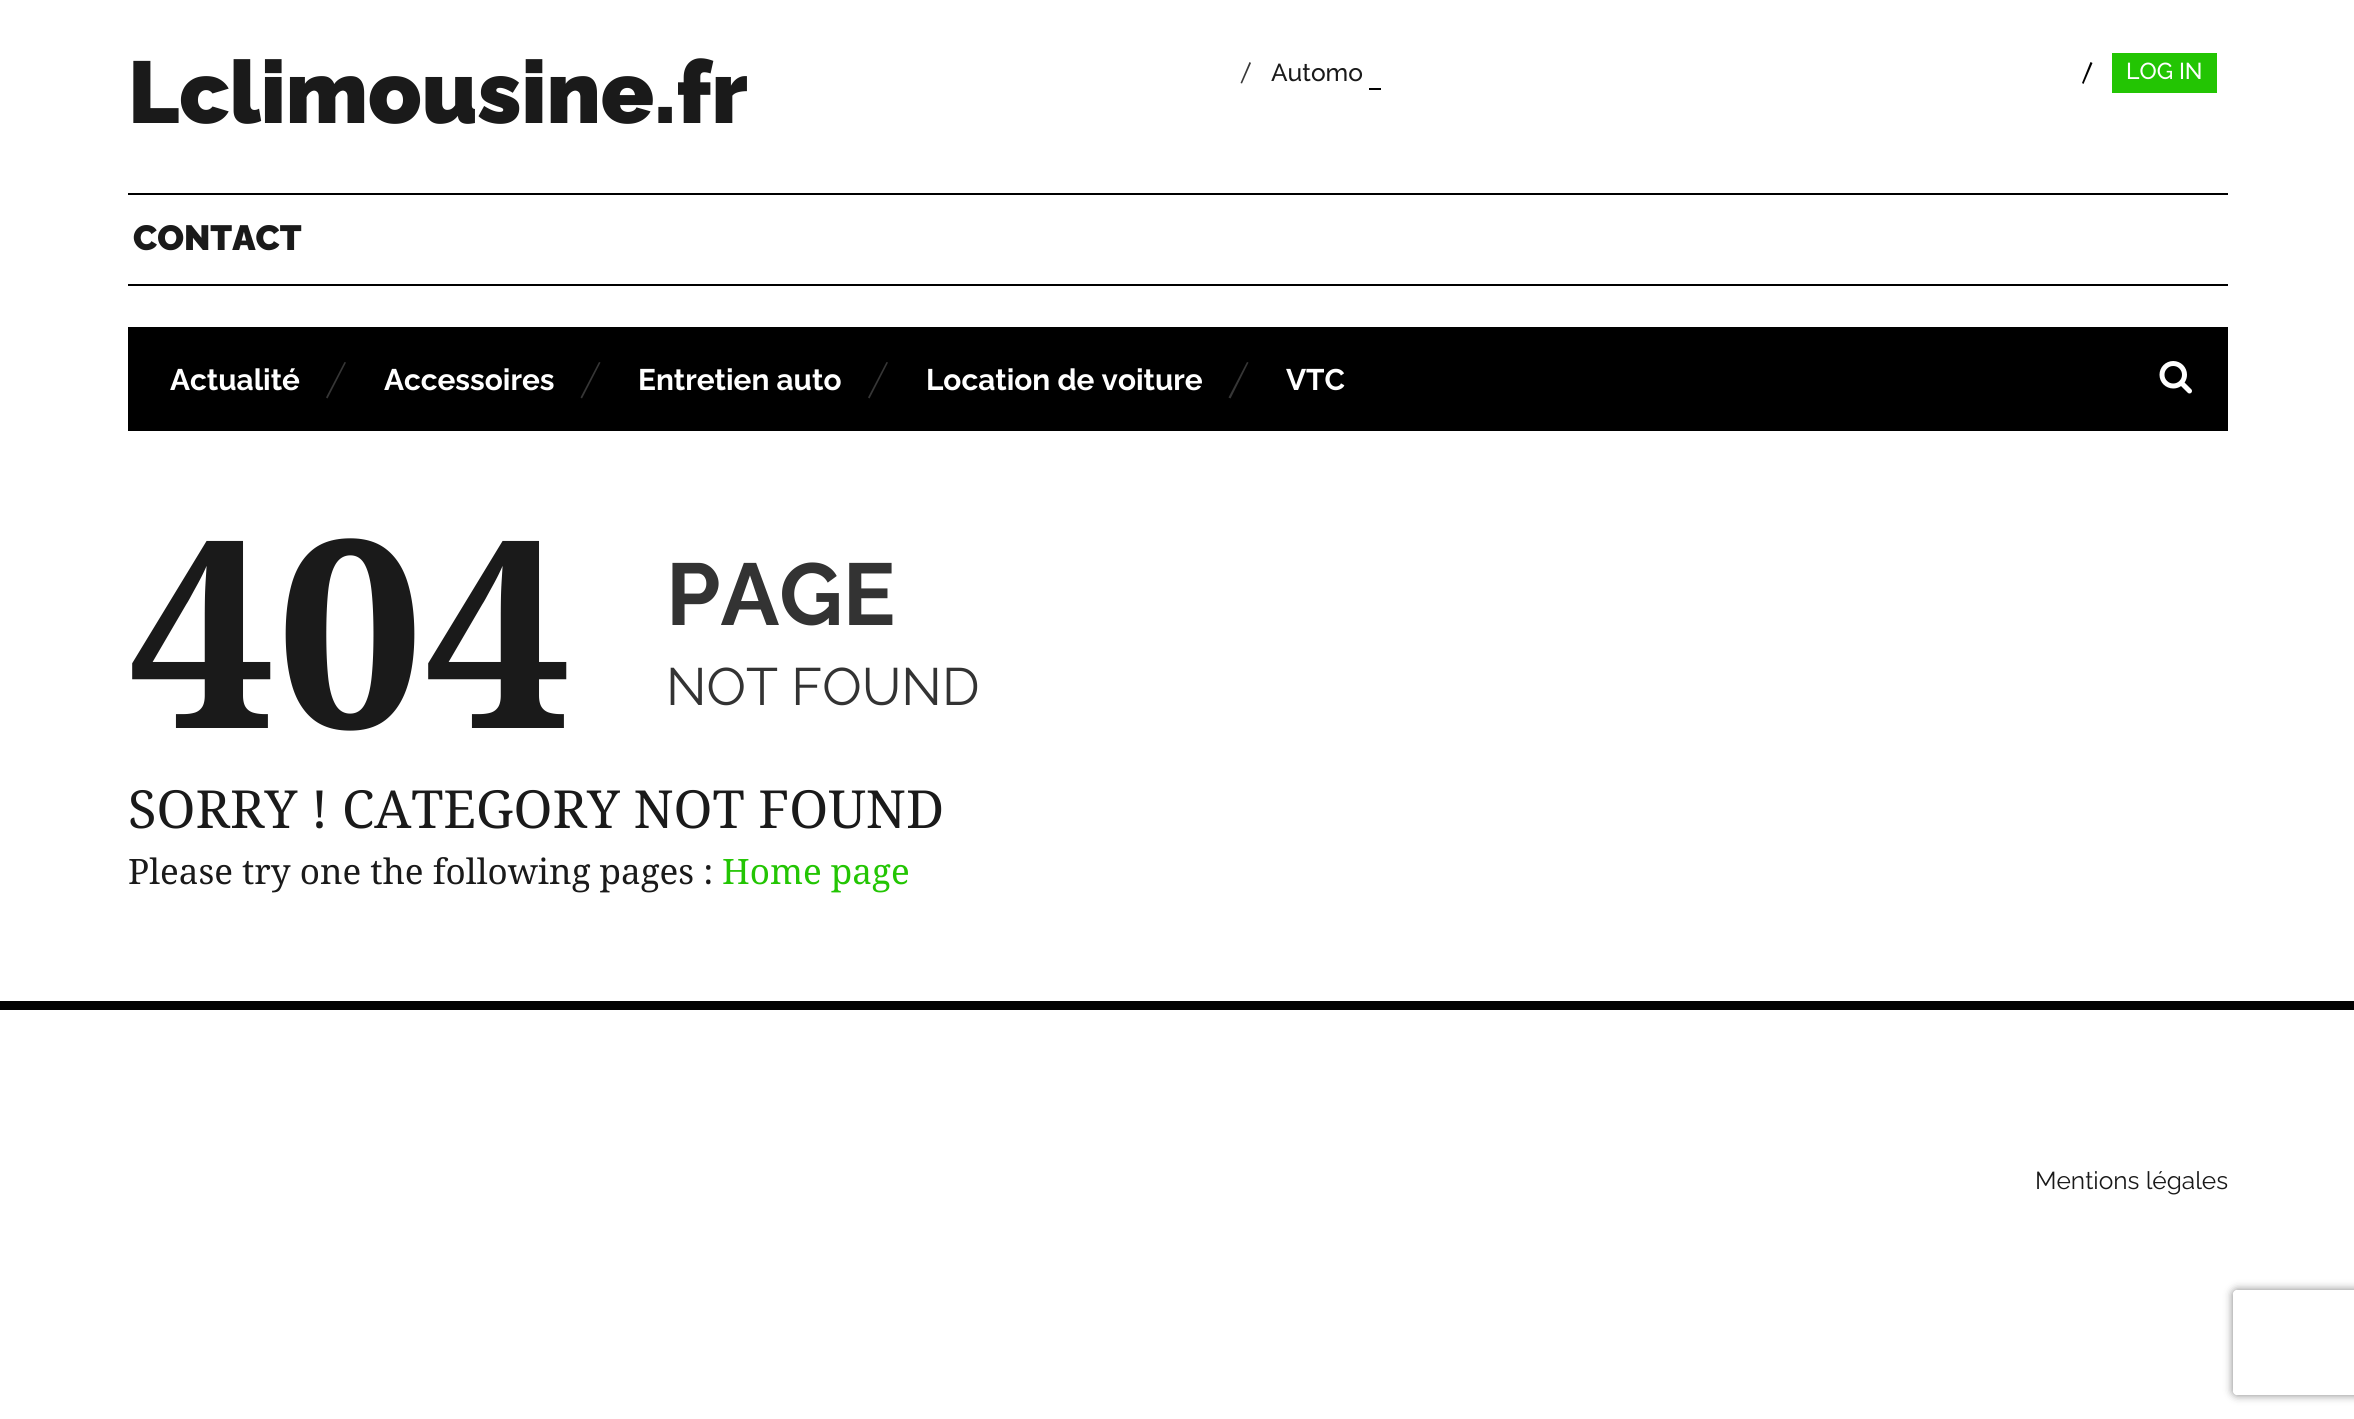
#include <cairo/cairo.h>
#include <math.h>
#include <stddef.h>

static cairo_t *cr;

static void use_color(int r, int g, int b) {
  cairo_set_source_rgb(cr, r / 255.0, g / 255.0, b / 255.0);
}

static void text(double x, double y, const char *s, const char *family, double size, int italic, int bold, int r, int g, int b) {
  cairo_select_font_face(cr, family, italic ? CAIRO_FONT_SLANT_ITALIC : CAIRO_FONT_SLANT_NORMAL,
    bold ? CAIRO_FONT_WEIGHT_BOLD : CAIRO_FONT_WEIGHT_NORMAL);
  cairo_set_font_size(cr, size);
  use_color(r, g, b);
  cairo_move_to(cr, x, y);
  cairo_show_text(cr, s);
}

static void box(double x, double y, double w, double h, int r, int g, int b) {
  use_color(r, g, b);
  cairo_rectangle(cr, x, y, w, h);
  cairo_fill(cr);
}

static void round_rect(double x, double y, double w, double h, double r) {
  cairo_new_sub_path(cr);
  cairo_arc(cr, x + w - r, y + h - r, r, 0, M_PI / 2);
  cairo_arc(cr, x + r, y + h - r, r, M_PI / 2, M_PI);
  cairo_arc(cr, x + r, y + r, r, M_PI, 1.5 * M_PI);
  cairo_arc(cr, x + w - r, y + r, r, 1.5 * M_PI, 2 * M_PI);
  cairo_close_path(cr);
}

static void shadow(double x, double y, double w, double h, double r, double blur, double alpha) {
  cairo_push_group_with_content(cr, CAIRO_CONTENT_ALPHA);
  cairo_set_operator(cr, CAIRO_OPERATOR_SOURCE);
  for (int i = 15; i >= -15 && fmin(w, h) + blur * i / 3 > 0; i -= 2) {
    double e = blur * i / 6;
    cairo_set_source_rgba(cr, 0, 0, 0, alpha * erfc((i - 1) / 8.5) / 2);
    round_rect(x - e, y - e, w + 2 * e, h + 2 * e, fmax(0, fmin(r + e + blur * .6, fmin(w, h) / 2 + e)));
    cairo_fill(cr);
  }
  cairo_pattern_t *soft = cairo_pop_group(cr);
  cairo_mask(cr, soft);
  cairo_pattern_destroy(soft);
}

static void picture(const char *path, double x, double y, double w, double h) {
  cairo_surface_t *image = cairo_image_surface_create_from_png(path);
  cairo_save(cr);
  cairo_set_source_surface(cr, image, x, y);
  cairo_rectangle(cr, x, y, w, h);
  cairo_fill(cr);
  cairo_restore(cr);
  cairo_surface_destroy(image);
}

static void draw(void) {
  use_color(255, 255, 255);
  cairo_paint(cr);
  use_color(56, 56, 56);
  cairo_new_path(cr);
  cairo_move_to(cr, 1249.5, 62);
  cairo_line_to(cr, 1251, 63);
  cairo_line_to(cr, 1242, 83.5);
  cairo_line_to(cr, 1240.5, 83);
  cairo_close_path(cr);
  cairo_fill(cr);
  use_color(0, 0, 0);
  cairo_new_path(cr);
  cairo_move_to(cr, 2090.5, 62);
  cairo_line_to(cr, 2092.5, 63);
  cairo_line_to(cr, 2083.5, 84);
  cairo_line_to(cr, 2082, 83);
  cairo_close_path(cr);
  cairo_fill(cr);
  box(1369, 88, 12, 2, 2, 2, 2);
  box(2112, 53, 105, 40, 35, 197, 3);
  box(128, 193, 2100, 2, 0, 0, 0);
  box(128, 284, 2100, 2, 0, 0, 0);
  box(128, 327, 2100, 104, 0, 0, 0);
  use_color(54, 54, 54);
  cairo_new_path(cr);
  cairo_move_to(cr, 344.5, 362);
  cairo_line_to(cr, 346, 362.5);
  cairo_line_to(cr, 327.5, 398.5);
  cairo_line_to(cr, 326, 397.5);
  cairo_close_path(cr);
  cairo_fill(cr);
  cairo_new_path(cr);
  cairo_move_to(cr, 599, 362);
  cairo_line_to(cr, 600.5, 362.5);
  cairo_line_to(cr, 582, 398.5);
  cairo_line_to(cr, 580.5, 397.5);
  cairo_close_path(cr);
  cairo_fill(cr);
  cairo_new_path(cr);
  cairo_move_to(cr, 886.5, 362);
  cairo_line_to(cr, 888, 362.5);
  cairo_line_to(cr, 869.5, 398.5);
  cairo_line_to(cr, 868, 397.5);
  cairo_close_path(cr);
  cairo_fill(cr);
  cairo_new_path(cr);
  cairo_move_to(cr, 1247, 362);
  cairo_line_to(cr, 1248.5, 362.5);
  cairo_line_to(cr, 1230.5, 398.5);
  cairo_line_to(cr, 1228.5, 397.5);
  cairo_close_path(cr);
  cairo_fill(cr);
  picture("img_01.png", 2159, 361, 33, 33);
  box(0, 1001, 2354, 9, 2, 2, 2);
  cairo_save(cr);
  cairo_set_fill_rule(cr, CAIRO_FILL_RULE_EVEN_ODD);
  cairo_new_path(cr);
  cairo_move_to(cr, 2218, 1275);
  cairo_line_to(cr, 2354, 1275);
  cairo_line_to(cr, 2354, 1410);
  cairo_line_to(cr, 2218, 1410);
  cairo_close_path(cr);
  cairo_move_to(cr, 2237, 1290);
  cairo_line_to(cr, 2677, 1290);
  cairo_curve_to(cr, 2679, 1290, 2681, 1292, 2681, 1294);
  cairo_line_to(cr, 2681, 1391);
  cairo_curve_to(cr, 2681, 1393, 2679, 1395, 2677, 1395);
  cairo_line_to(cr, 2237, 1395);
  cairo_curve_to(cr, 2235, 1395, 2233, 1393, 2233, 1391);
  cairo_line_to(cr, 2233, 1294);
  cairo_curve_to(cr, 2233, 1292, 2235, 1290, 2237, 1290);
  cairo_close_path(cr);
  cairo_clip(cr);
  use_color(128, 128, 128);
  shadow(2233, 1290, 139, 105, 4, 4.5, 1);
  cairo_restore(cr);
  text(128, 123, "Lclimousine.fr", "Raleway Black", 87.5, 0, 0, 26, 26, 26);
  text(1271, 81, "Automo", "Raleway Medium", 24.5, 0, 0, 26, 26, 26);
  text(2126, 79, "LOG IN", "Raleway Medium", 23, 0, 0, 255, 255, 255);
  text(133, 250, "CONTACT", "Raleway Black", 35, 0, 0, 26, 26, 26);
  text(170, 390, "Actualité", "Raleway", 29.75, 0, 1, 255, 255, 255);
  text(384, 390, "Accessoires", "Raleway", 29.75, 0, 1, 255, 255, 255);
  text(638, 390, "Entretien auto", "Raleway", 29.75, 0, 1, 255, 255, 255);
  text(926, 390, "Location de voiture", "Raleway", 29.75, 0, 1, 255, 255, 255);
  text(1286, 390, "VTC", "Raleway", 29.75, 0, 1, 255, 255, 255);
  text(128, 728, "404", "Noto Serif", 262, 0, 1, 26, 26, 26);
  text(666, 625, "PAGE", "Raleway", 87.5, 0, 1, 51, 51, 51);
  text(666, 705, "NOT FOUND", "Raleway", 52.5, 0, 0, 51, 51, 51);
  text(128, 828, "SORRY ! CATEGORY NOT FOUND", "Noto Serif", 52.5, 0, 0, 26, 26, 26);
  text(128, 884, "Please try one the following pages :", "Noto Serif", 35, 0, 0, 26, 26, 26);
  text(722, 884, "Home page", "Noto Serif", 35, 0, 0, 35, 197, 3);
  text(2035, 1189, "Mentions légales", "Raleway", 24.5, 0, 0, 26, 26, 26);
}

int main(void) {
  cairo_surface_t *surface = cairo_image_surface_create(CAIRO_FORMAT_RGB24, 2354, 1419);
  cr = cairo_create(surface);
  cairo_font_options_t *options = cairo_font_options_create();
  cairo_font_options_set_hint_metrics(options, CAIRO_HINT_METRICS_OFF);
  cairo_font_options_set_hint_style(options, CAIRO_HINT_STYLE_NONE);
  cairo_set_font_options(cr, options);
  cairo_set_miter_limit(cr, 4);
  draw();
  cairo_surface_write_to_png(surface, "out.png");
  cairo_font_options_destroy(options);
  cairo_destroy(cr);
  cairo_surface_destroy(surface);
  return 0;
}
